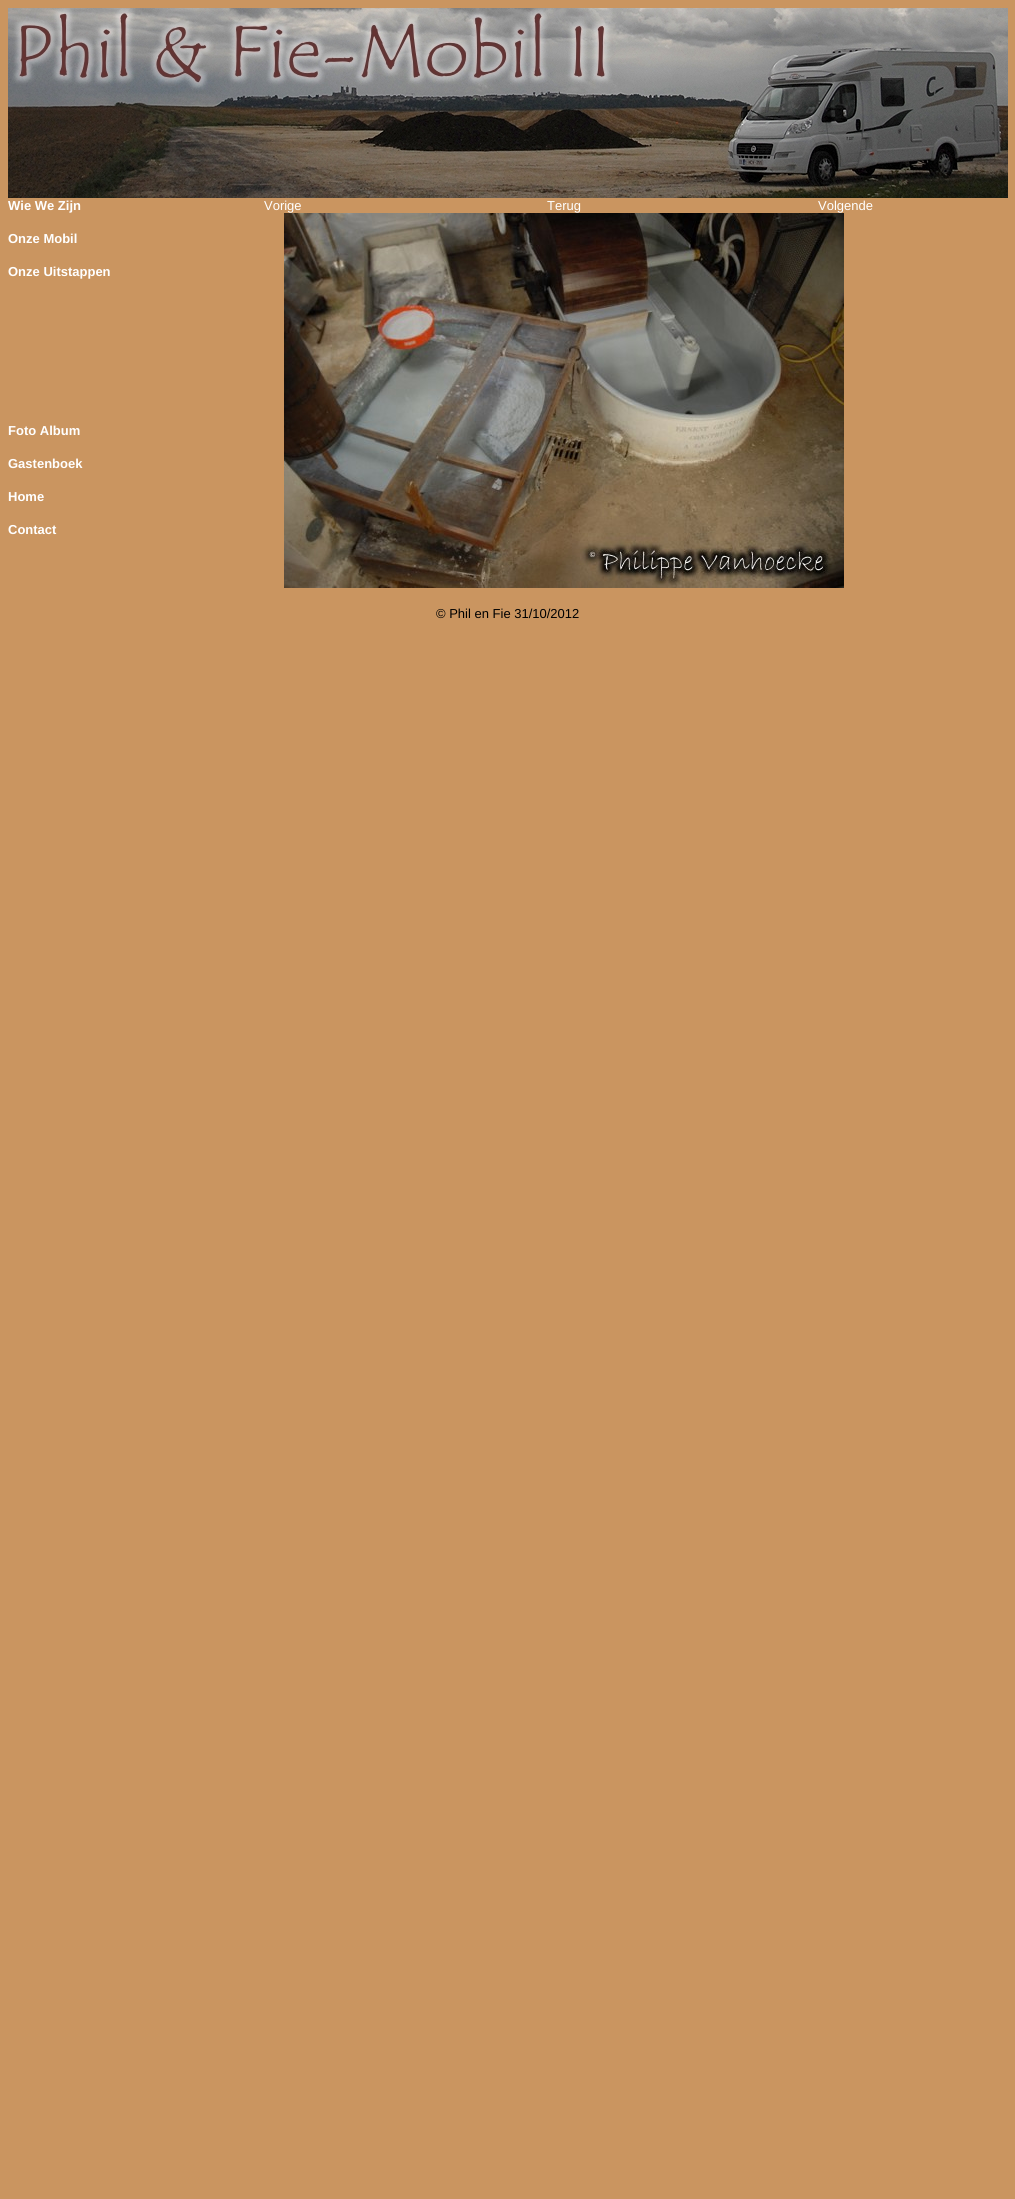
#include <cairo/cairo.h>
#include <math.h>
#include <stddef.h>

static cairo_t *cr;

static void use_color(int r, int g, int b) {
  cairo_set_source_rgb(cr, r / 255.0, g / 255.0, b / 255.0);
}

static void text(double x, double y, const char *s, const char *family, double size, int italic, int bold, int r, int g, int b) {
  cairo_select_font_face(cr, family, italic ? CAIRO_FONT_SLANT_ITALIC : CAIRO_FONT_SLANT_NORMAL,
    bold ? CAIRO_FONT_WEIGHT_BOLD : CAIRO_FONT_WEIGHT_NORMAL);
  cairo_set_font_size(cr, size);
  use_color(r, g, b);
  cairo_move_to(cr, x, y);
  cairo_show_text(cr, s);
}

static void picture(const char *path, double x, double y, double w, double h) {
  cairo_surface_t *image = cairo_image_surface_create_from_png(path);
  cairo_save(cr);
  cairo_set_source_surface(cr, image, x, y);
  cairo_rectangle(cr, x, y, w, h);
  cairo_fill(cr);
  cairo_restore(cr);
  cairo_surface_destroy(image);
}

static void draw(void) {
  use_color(202, 149, 96);
  cairo_paint(cr);
  picture("img_01.png", 8, 8, 1000, 190);
  picture("img_02.png", 284, 213, 560, 375);
  text(8, 210, "Wie We Zijn", "Liberation Sans", 13, 0, 1, 255, 255, 255);
  text(8, 243, "Onze Mobil", "Liberation Sans", 13, 0, 1, 255, 255, 255);
  text(8, 276, "Onze Uitstappen", "Liberation Sans", 13, 0, 1, 255, 255, 255);
  text(8, 435, "Foto Album", "Liberation Sans", 13, 0, 1, 255, 255, 255);
  text(8, 468, "Gastenboek", "Liberation Sans", 13, 0, 1, 255, 255, 255);
  text(8, 501, "Home", "Liberation Sans", 13, 0, 1, 255, 255, 255);
  text(8, 534, "Contact", "Liberation Sans", 13, 0, 1, 255, 255, 255);
  text(264, 210, "Vorige", "Liberation Sans", 13, 0, 0, 255, 255, 255);
  text(547, 210, "Terug", "Liberation Sans", 13, 0, 0, 255, 255, 255);
  text(818, 210, "Volgende", "Liberation Sans", 13, 0, 0, 255, 255, 255);
  text(436, 618, "© Phil en Fie 31/10/2012", "Liberation Sans", 13, 0, 0, 0, 0, 0);
}

int main(void) {
  cairo_surface_t *surface = cairo_image_surface_create(CAIRO_FORMAT_RGB24, 1015, 2199);
  cr = cairo_create(surface);
  cairo_font_options_t *options = cairo_font_options_create();
  cairo_font_options_set_hint_metrics(options, CAIRO_HINT_METRICS_OFF);
  cairo_font_options_set_hint_style(options, CAIRO_HINT_STYLE_NONE);
  cairo_set_font_options(cr, options);
  cairo_set_miter_limit(cr, 4);
  draw();
  cairo_surface_write_to_png(surface, "out.png");
  cairo_font_options_destroy(options);
  cairo_destroy(cr);
  cairo_surface_destroy(surface);
  return 0;
}
